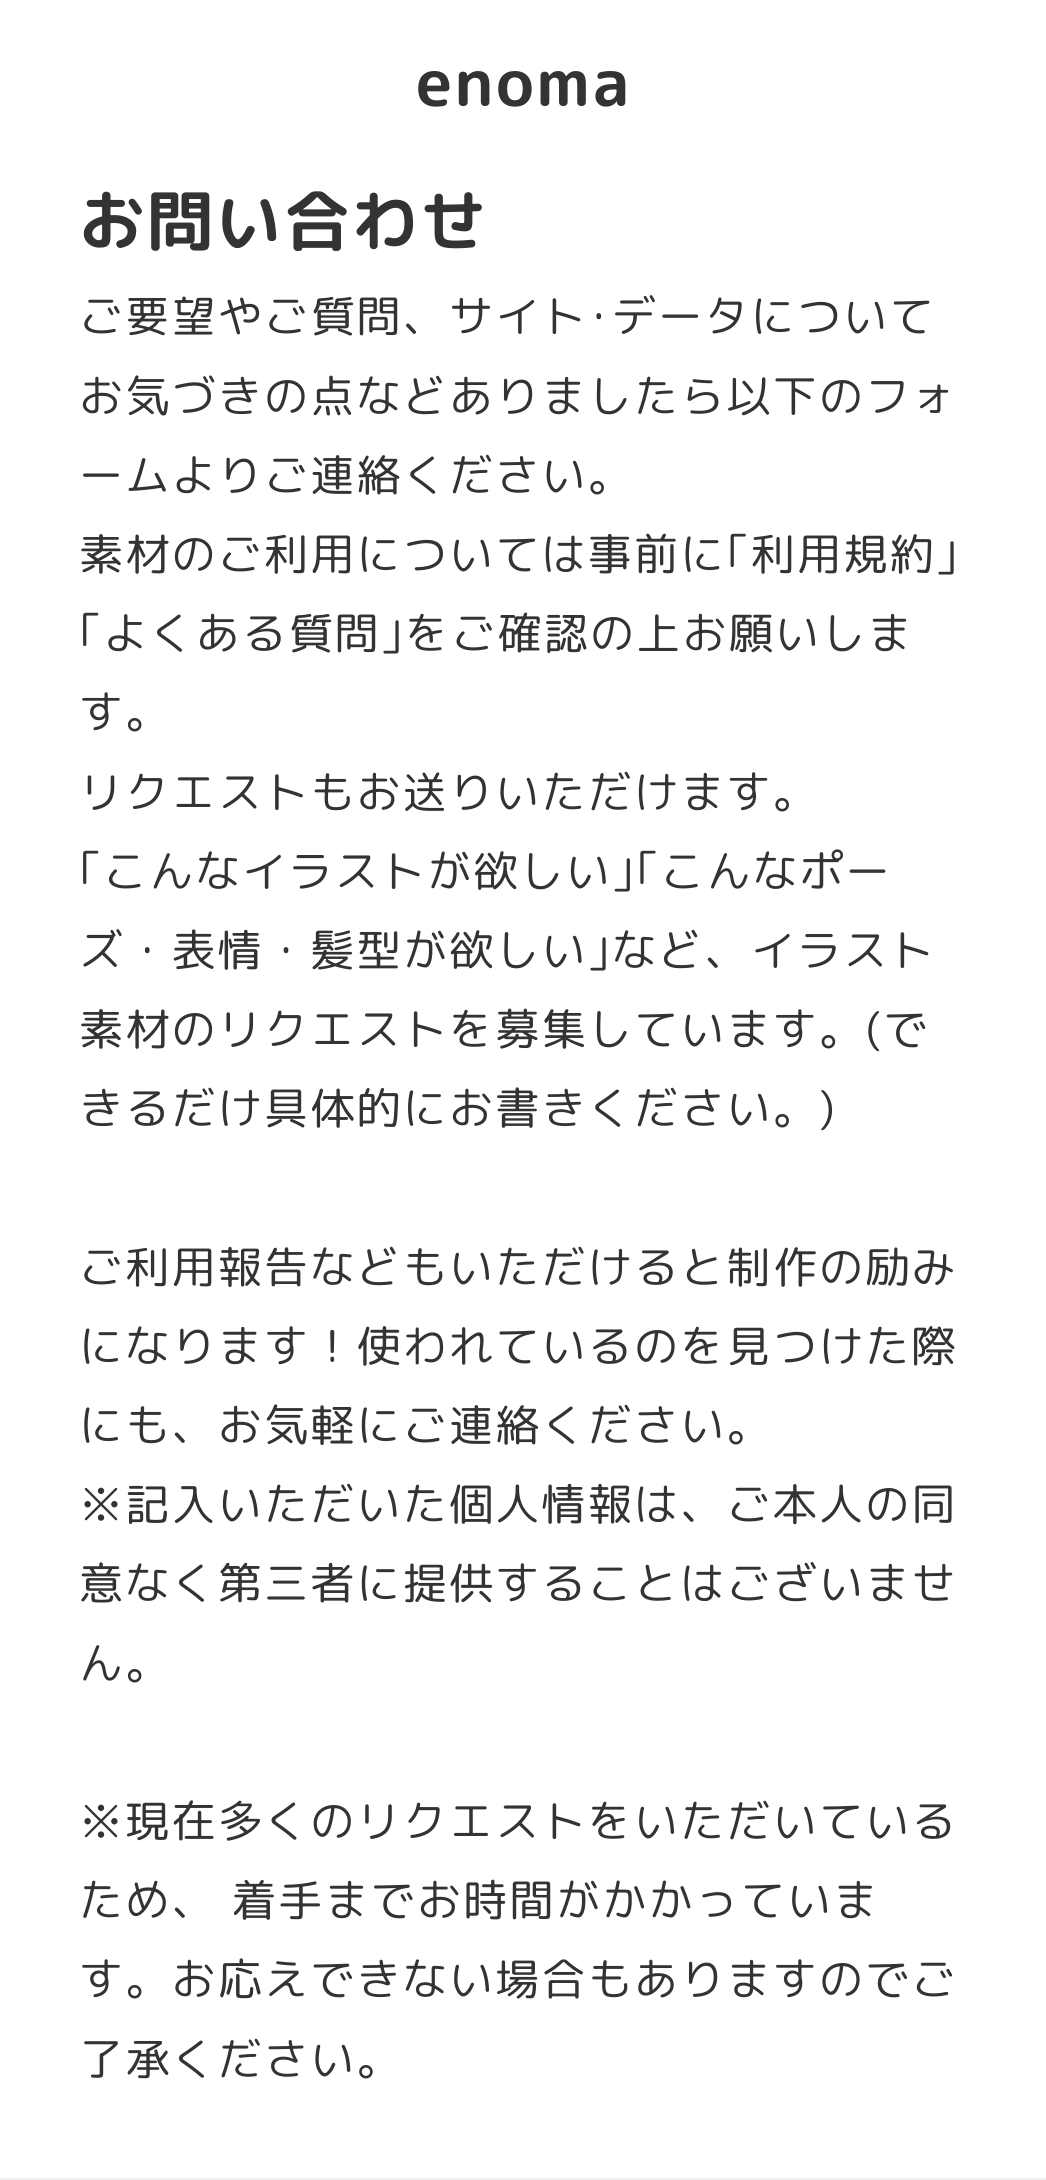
#include <cairo/cairo.h>
#include <math.h>
#include <stddef.h>

static cairo_t *cr;

static void use_color(int r, int g, int b) {
  cairo_set_source_rgb(cr, r / 255.0, g / 255.0, b / 255.0);
}

static void spaced_text(double x, double y, const char *s, double letter, double word) {
  cairo_move_to(cr, x, y);
  while (*s) {
    char ch[5] = {0};
    int n = 0;
    do ch[n++] = *s++; while ((*s & 0xC0) == 0x80);
    cairo_show_text(cr, ch);
    cairo_rel_move_to(cr, letter + word * (*ch == ' '), 0);
  }
}

static void box(double x, double y, double w, double h, int r, int g, int b) {
  use_color(r, g, b);
  cairo_rectangle(cr, x, y, w, h);
  cairo_fill(cr);
}

static void draw(void) {
  use_color(255, 255, 255);
  cairo_paint(cr);
  box(0, 2178, 1046, 2, 238, 238, 238);
  cairo_select_font_face(cr, "Rounded Mplus 1c Bold", CAIRO_FONT_SLANT_NORMAL, CAIRO_FONT_WEIGHT_BOLD);
  cairo_set_font_size(cr, 66);
  use_color(51, 51, 51);
  spaced_text(416, 106, "enoma", 2.25, 0);
  spaced_text(79, 245, "お問い合わせ", 2.25, 0);
  cairo_select_font_face(cr, "Rounded Mplus 1c", CAIRO_FONT_SLANT_NORMAL, CAIRO_FONT_WEIGHT_NORMAL);
  cairo_set_font_size(cr, 44);
  spaced_text(79, 332, "ご要望やご質問、サイト･データについて", 2.25, 0);
  spaced_text(79, 412, "お気づきの点などありましたら以下のフォ", 2.25, 0);
  spaced_text(79, 491, "ームよりご連絡ください。", 2.25, 0);
  spaced_text(79, 570, "素材のご利用については事前に｢利用規約｣", 2.25, 0);
  spaced_text(79, 649, "｢よくある質問｣をご確認の上お願いしま", 2.25, 0);
  spaced_text(79, 728, "す。", 2.25, 0);
  spaced_text(79, 808, "リクエストもお送りいただけます。", 2.25, 0);
  spaced_text(79, 887, "｢こんなイラストが欲しい｣｢こんなポー", 2.25, 0);
  spaced_text(79, 966, "ズ・表情・髪型が欲しい｣など、イラスト", 2.25, 0);
  spaced_text(79, 1045, "素材のリクエストを募集しています。(で", 2.25, 0);
  spaced_text(79, 1124, "きるだけ具体的にお書きください。)", 2.25, 0);
  spaced_text(79, 1283, "ご利用報告などもいただけると制作の励み", 2.25, 0);
  spaced_text(79, 1362, "になります！使われているのを見つけた際", 2.25, 0);
  spaced_text(79, 1441, "にも、お気軽にご連絡ください。", 2.25, 0);
  spaced_text(79, 1520, "※記入いただいた個人情報は、ご本人の同", 2.25, 0);
  spaced_text(79, 1599, "意なく第三者に提供することはございませ", 2.25, 0);
  spaced_text(79, 1679, "ん。", 2.25, 0);
  spaced_text(79, 1837, "※現在多くのリクエストをいただいている", 2.25, 0);
  spaced_text(79, 1916, "ため、", 2.25, 0);
  spaced_text(232, 1916, "着手までお時間がかかっていま", 2.25, 0);
  spaced_text(79, 1995, "す。お応えできない場合もありますのでご", 2.25, 0);
  spaced_text(79, 2075, "了承ください。", 2.25, 0);
}

int main(void) {
  cairo_surface_t *surface = cairo_image_surface_create(CAIRO_FORMAT_RGB24, 1046, 2180);
  cr = cairo_create(surface);
  cairo_font_options_t *options = cairo_font_options_create();
  cairo_font_options_set_hint_metrics(options, CAIRO_HINT_METRICS_OFF);
  cairo_font_options_set_hint_style(options, CAIRO_HINT_STYLE_NONE);
  cairo_set_font_options(cr, options);
  cairo_set_miter_limit(cr, 4);
  draw();
  cairo_surface_write_to_png(surface, "out.png");
  cairo_font_options_destroy(options);
  cairo_destroy(cr);
  cairo_surface_destroy(surface);
  return 0;
}
